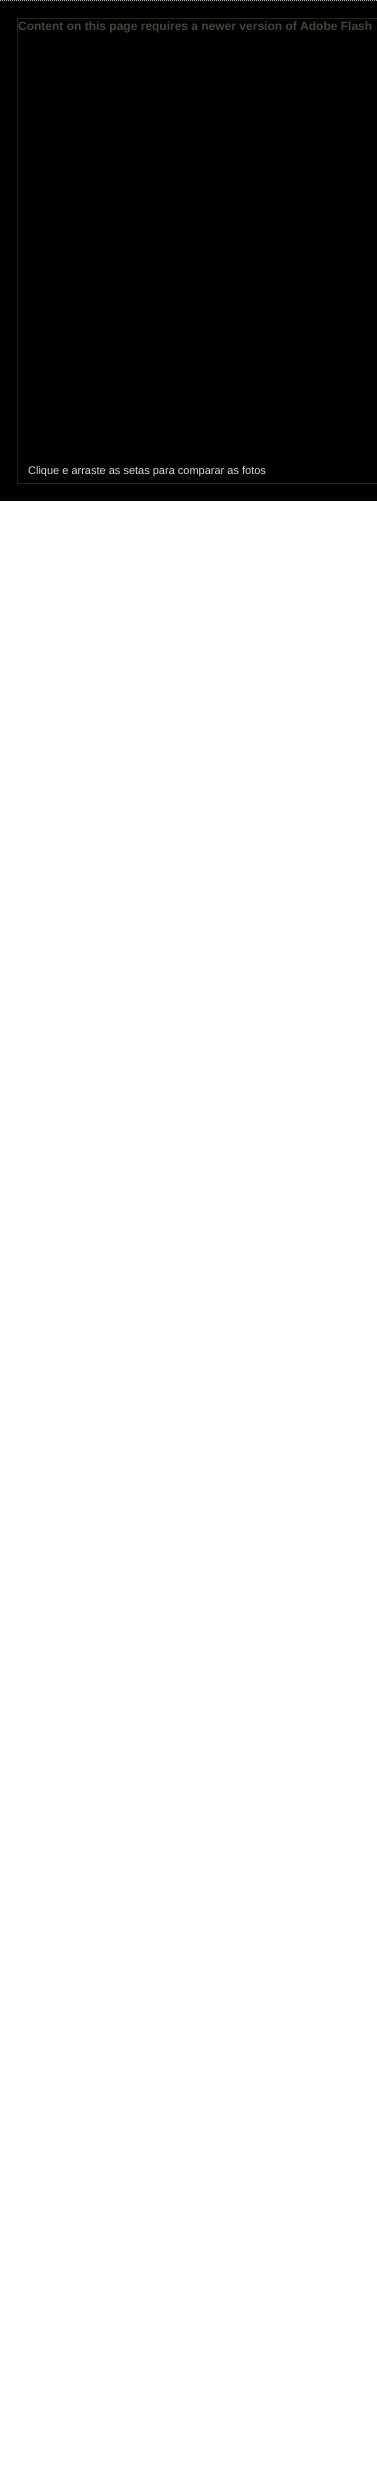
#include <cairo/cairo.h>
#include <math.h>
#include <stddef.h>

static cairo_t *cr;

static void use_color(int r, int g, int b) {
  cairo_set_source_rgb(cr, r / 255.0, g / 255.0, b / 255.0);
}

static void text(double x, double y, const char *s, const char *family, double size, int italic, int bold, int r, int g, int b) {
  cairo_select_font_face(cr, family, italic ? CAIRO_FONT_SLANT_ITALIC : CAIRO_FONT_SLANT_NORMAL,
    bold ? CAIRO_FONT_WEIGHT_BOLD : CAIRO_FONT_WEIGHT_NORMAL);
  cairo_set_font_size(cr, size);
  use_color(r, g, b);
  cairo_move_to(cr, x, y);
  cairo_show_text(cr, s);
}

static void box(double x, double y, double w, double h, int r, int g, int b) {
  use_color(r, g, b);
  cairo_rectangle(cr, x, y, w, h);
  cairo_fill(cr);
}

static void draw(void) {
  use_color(255, 255, 255);
  cairo_paint(cr);
  box(0, 0, 377, 501, 0, 0, 0);
  cairo_new_path(cr);
  cairo_move_to(cr, 0, 0.5);
  cairo_line_to(cr, 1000, 0.5);
  use_color(190, 183, 175);
  cairo_set_line_width(cr, 1);
  cairo_set_dash(cr, (double[]){1, 1}, 2, 0);
  cairo_stroke(cr);
  cairo_rectangle(cr, 17.5, 18.5, 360, 465);
  use_color(35, 35, 35);
  cairo_set_dash(cr, NULL, 0, 0);
  cairo_stroke(cr);
  text(18, 30, "Content on this page requires a newer version of Adobe Flash", "Liberation Sans", 12, 0, 1, 71, 66, 58);
  text(28, 474, "Clique e arraste as setas para comparar as fotos", "Liberation Sans", 11, 0, 0, 217, 217, 217);
}

int main(void) {
  cairo_surface_t *surface = cairo_image_surface_create(CAIRO_FORMAT_RGB24, 377, 2482);
  cr = cairo_create(surface);
  cairo_font_options_t *options = cairo_font_options_create();
  cairo_font_options_set_hint_metrics(options, CAIRO_HINT_METRICS_OFF);
  cairo_font_options_set_hint_style(options, CAIRO_HINT_STYLE_NONE);
  cairo_set_font_options(cr, options);
  cairo_set_miter_limit(cr, 4);
  draw();
  cairo_surface_write_to_png(surface, "out.png");
  cairo_font_options_destroy(options);
  cairo_destroy(cr);
  cairo_surface_destroy(surface);
  return 0;
}
